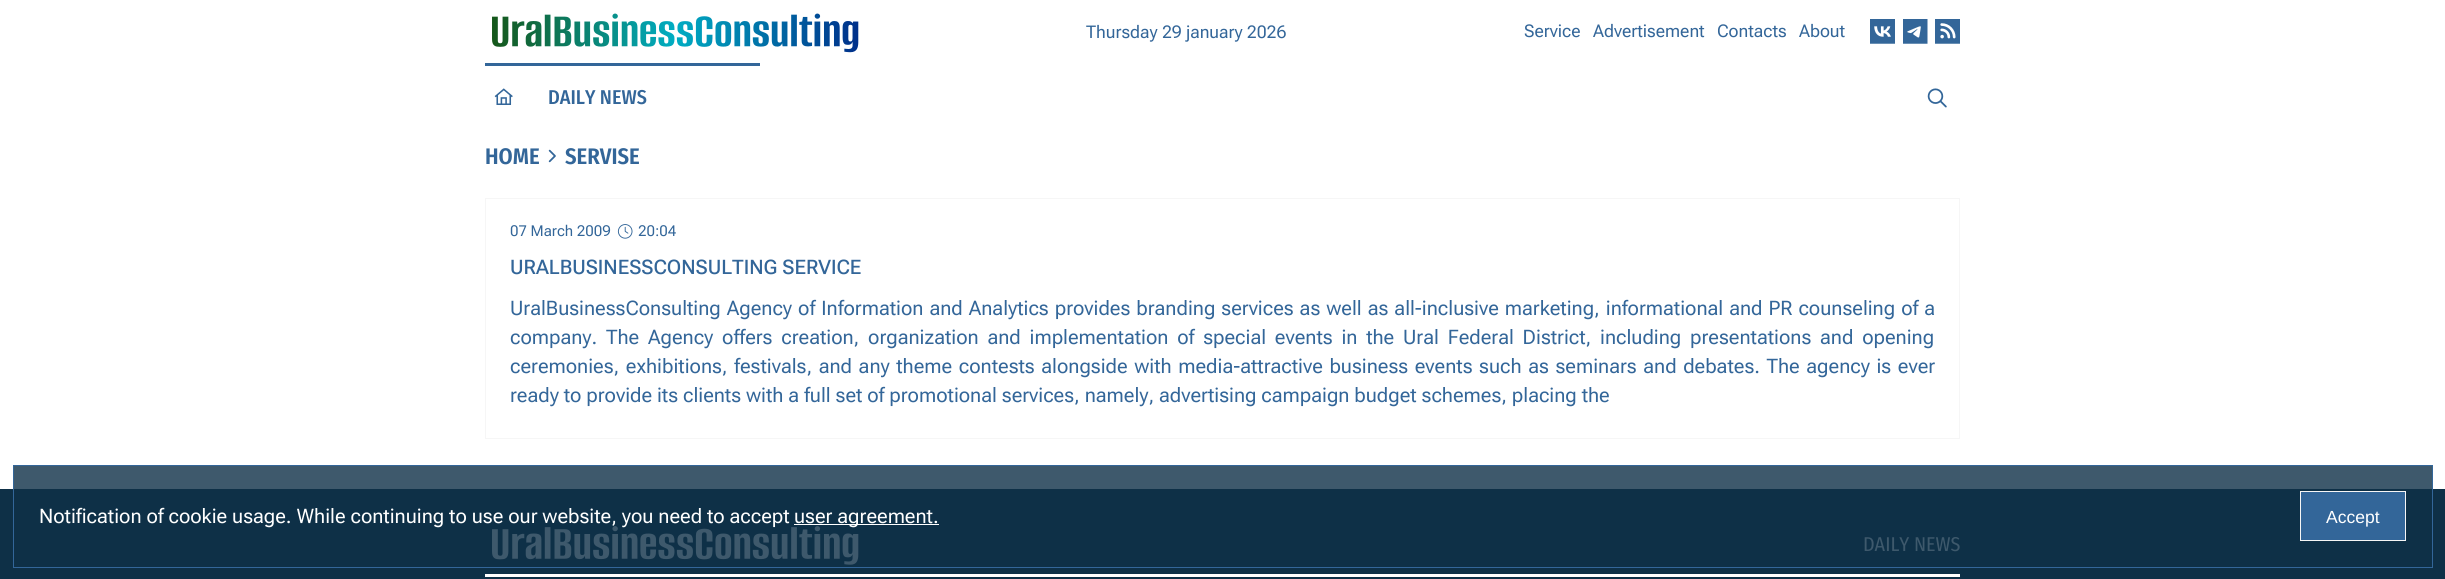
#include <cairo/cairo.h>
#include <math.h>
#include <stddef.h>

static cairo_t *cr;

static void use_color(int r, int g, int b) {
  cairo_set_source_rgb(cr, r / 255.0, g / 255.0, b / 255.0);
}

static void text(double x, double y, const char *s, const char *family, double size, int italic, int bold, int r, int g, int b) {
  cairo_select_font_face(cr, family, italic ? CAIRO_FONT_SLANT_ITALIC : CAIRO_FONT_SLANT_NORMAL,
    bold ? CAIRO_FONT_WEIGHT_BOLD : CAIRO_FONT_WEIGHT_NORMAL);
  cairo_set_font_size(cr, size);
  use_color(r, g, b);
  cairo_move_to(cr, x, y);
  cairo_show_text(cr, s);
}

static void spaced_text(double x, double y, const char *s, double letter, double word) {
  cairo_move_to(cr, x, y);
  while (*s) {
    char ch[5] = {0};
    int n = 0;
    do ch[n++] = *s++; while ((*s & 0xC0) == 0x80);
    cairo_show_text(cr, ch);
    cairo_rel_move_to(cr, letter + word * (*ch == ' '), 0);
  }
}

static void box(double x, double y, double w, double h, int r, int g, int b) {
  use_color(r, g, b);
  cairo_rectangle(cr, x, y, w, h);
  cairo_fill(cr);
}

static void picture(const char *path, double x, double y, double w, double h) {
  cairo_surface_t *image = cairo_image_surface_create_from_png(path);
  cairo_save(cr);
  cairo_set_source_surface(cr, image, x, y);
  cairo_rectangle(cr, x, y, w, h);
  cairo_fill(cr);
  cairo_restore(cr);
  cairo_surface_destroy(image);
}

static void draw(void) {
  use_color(255, 255, 255);
  cairo_paint(cr);
  box(14, 466, 2418, 23, 62, 89, 108);
  picture("img_01.png", 492, 13, 367, 40);
  picture("img_02.png", 1870, 19, 25, 25);
  picture("img_03.png", 1903, 19, 25, 25);
  picture("img_04.png", 1935, 19, 25, 25);
  box(485, 63, 275, 3, 51, 102, 153);
  picture("img_05.png", 494, 88, 19, 17);
  picture("img_06.png", 1927, 88, 20, 20);
  picture("img_07.png", 548, 149, 8, 14);
  picture("img_08.png", 617, 224, 16, 15);
  cairo_rectangle(cr, 485.5, 198.5, 1474, 240);
  use_color(246, 246, 246);
  cairo_set_line_width(cr, 1);
  cairo_stroke(cr);
  box(0, 489, 2445, 90, 14, 48, 71);
  box(485, 574, 1475, 3, 255, 255, 255);
  picture("img_09.png", 492, 526, 367, 39);
  cairo_rectangle(cr, 13.5, 465.5, 2419, 102);
  use_color(51, 102, 153);
  cairo_stroke(cr);
  box(794, 524, 145, 1, 255, 255, 255);
  use_color(51, 102, 153);
  cairo_rectangle(cr, 2300.5, 491.5, 105, 49);
  cairo_fill_preserve(cr);
  use_color(246, 246, 246);
  cairo_stroke(cr);
  text(1086, 38, "Thursday 29 january 2026", "Roboto Flex", 17.5, 0, 0, 51, 102, 153);
  text(1524, 37, "Service", "Roboto Flex", 17.5, 0, 0, 51, 102, 153);
  text(1593, 37, "Advertisement", "Roboto Flex", 17.5, 0, 0, 51, 102, 153);
  text(1717, 37, "Contacts", "Roboto Flex", 17.5, 0, 0, 51, 102, 153);
  text(1799, 37, "About", "Roboto Flex", 17.5, 0, 0, 51, 102, 153);
  text(548, 104, "DAILY NEWS", "Fira Sans Condensed Medium", 20, 0, 0, 51, 102, 153);
  text(485, 164, "HOME", "Fira Sans Condensed SemiBold", 22.5, 0, 0, 51, 102, 153);
  text(565, 164, "SERVISE", "Fira Sans Condensed SemiBold", 22.5, 0, 0, 51, 102, 153);
  text(510, 236, "07 March 2009", "Roboto Flex", 15, 0, 0, 51, 102, 153);
  text(638, 236, "20:04", "Roboto Flex", 15, 0, 0, 51, 102, 153);
  text(510, 274, "URALBUSINESSCONSULTING SERVICE", "Roboto Flex Medium", 20, 0, 0, 51, 102, 153);
  cairo_select_font_face(cr, "Roboto Flex", CAIRO_FONT_SLANT_NORMAL, CAIRO_FONT_WEIGHT_NORMAL);
  spaced_text(510, 315, "UralBusinessConsulting Agency of Information and Analytics provides branding services as well as all-inclusive marketing, informational and PR counseling of a", 0, 1.1);
  spaced_text(510, 344, "company. The Agency offers creation, organization and implementation of special events in the Ural Federal District, including presentations and opening", 0, 3.9);
  spaced_text(510, 373, "ceremonies, exhibitions, festivals, and any theme contests alongside with media-attractive business events such as seminars and debates. The agency is ever", 0, 1.7);
  text(510, 402, "ready to provide its clients with a full set of promotional services, namely, advertising campaign budget schemes, placing the", "Roboto Flex", 20, 0, 0, 51, 102, 153);
  text(1863, 551, "DAILY NEWS", "Fira Sans Condensed", 20, 0, 0, 62, 89, 108);
  text(39, 523, "Notification of cookie usage. While continuing to use our website, you need to accept", "Roboto Flex", 20, 0, 0, 255, 255, 255);
  text(794, 523, "user agreement.", "Roboto Flex", 20, 0, 0, 255, 255, 255);
  text(2326, 523, "Accept", "Liberation Sans", 17.5, 0, 0, 255, 255, 255);
}

int main(void) {
  cairo_surface_t *surface = cairo_image_surface_create(CAIRO_FORMAT_RGB24, 2445, 579);
  cr = cairo_create(surface);
  cairo_font_options_t *options = cairo_font_options_create();
  cairo_font_options_set_hint_metrics(options, CAIRO_HINT_METRICS_OFF);
  cairo_font_options_set_hint_style(options, CAIRO_HINT_STYLE_NONE);
  cairo_set_font_options(cr, options);
  cairo_set_miter_limit(cr, 4);
  draw();
  cairo_surface_write_to_png(surface, "out.png");
  cairo_font_options_destroy(options);
  cairo_destroy(cr);
  cairo_surface_destroy(surface);
  return 0;
}
